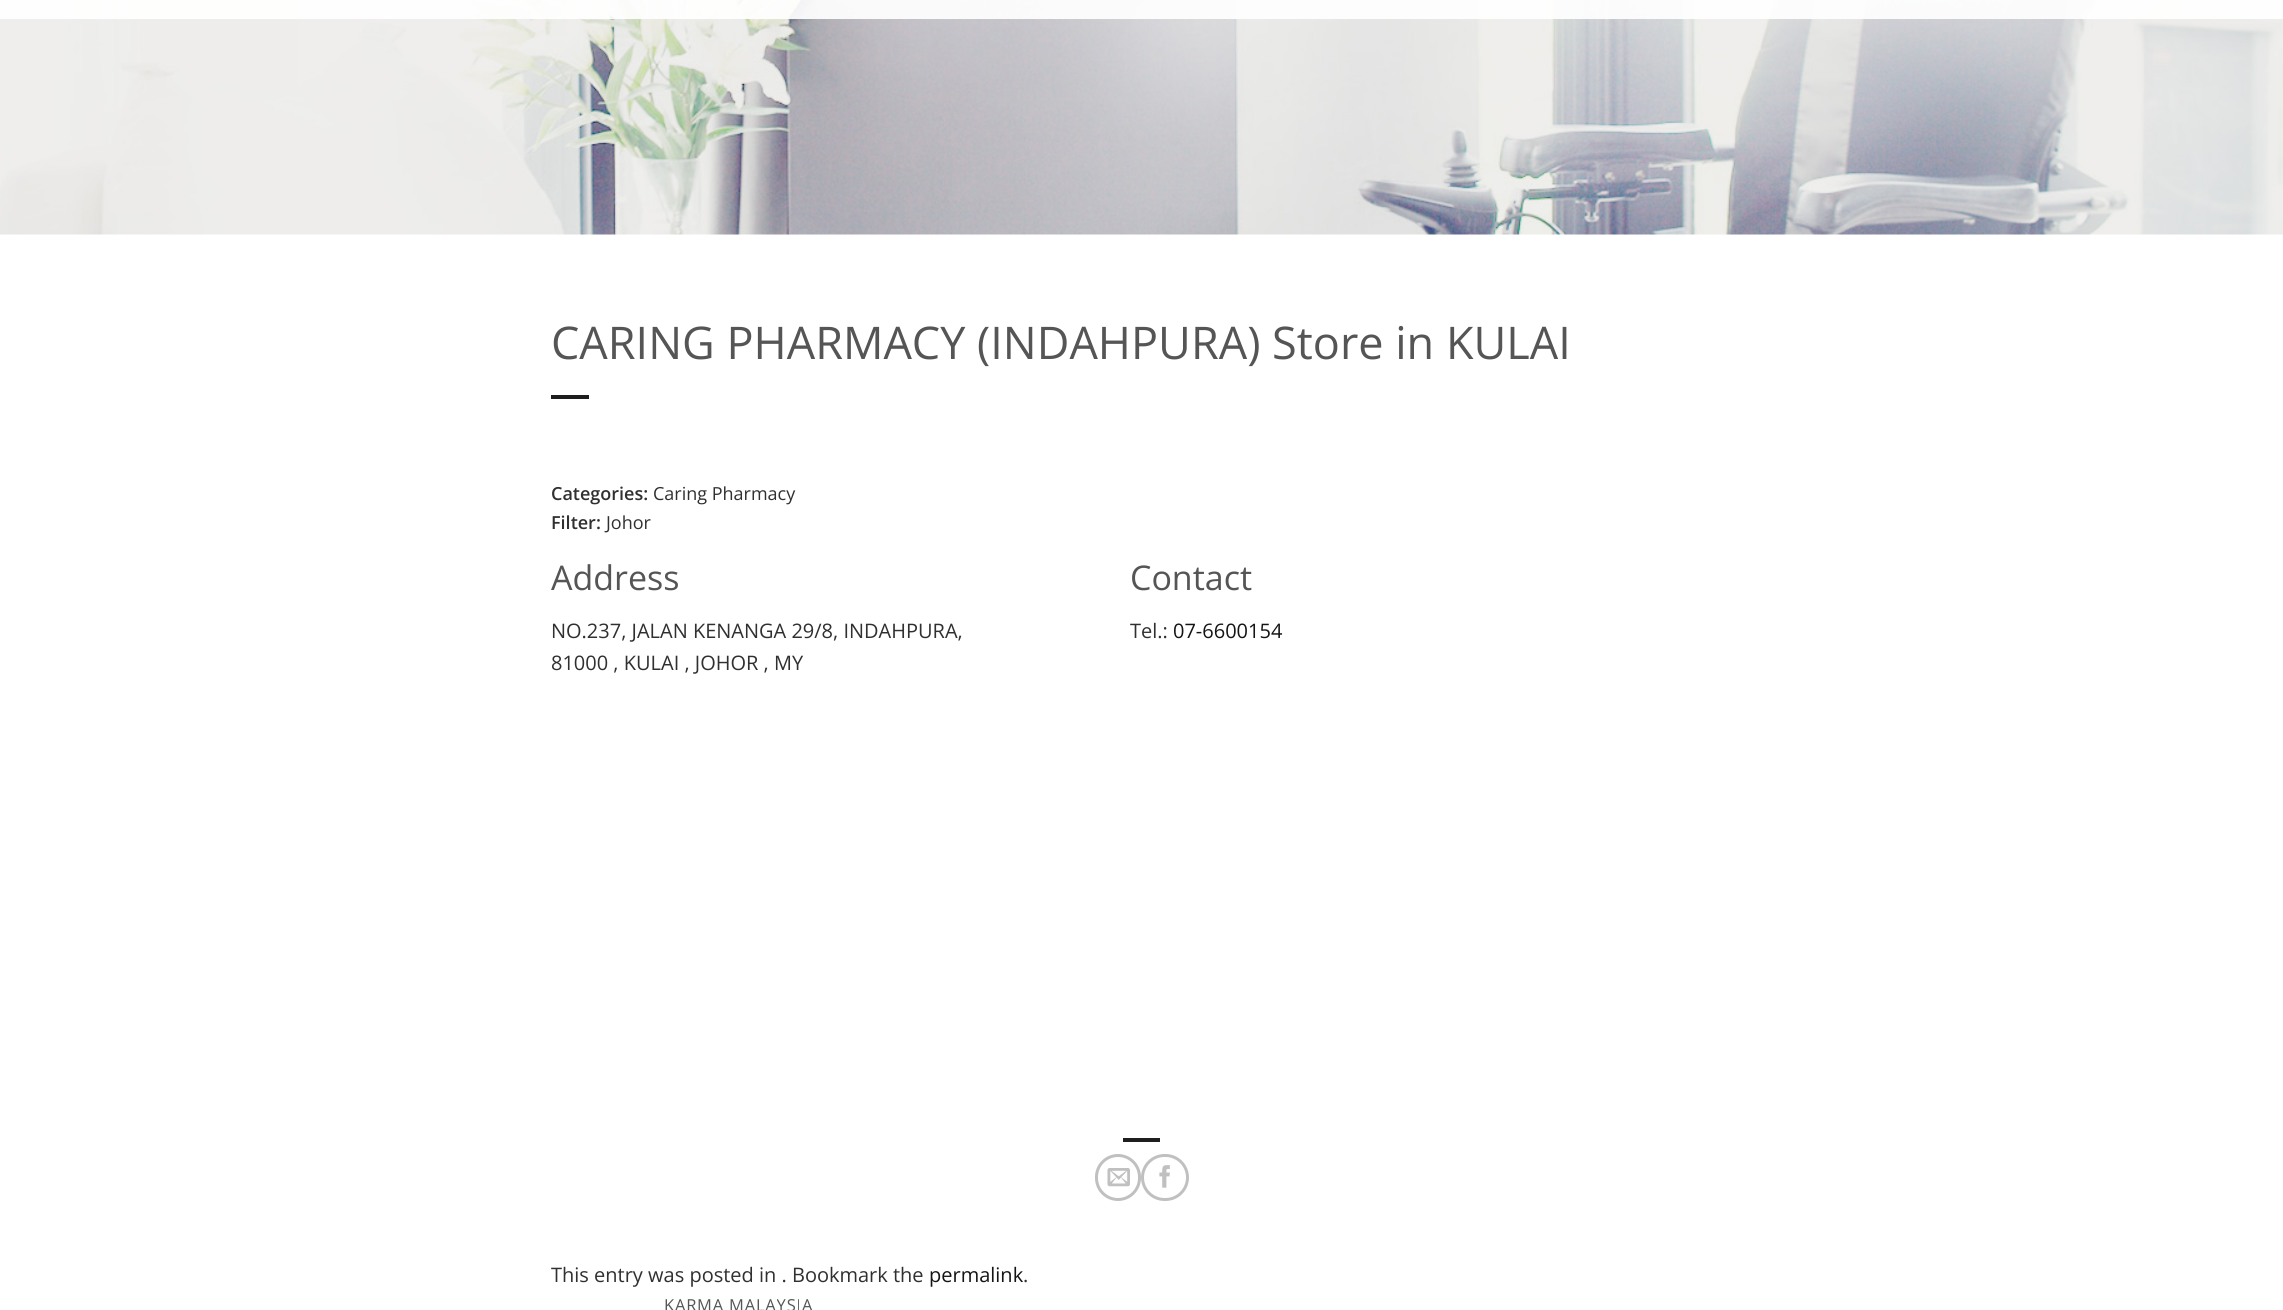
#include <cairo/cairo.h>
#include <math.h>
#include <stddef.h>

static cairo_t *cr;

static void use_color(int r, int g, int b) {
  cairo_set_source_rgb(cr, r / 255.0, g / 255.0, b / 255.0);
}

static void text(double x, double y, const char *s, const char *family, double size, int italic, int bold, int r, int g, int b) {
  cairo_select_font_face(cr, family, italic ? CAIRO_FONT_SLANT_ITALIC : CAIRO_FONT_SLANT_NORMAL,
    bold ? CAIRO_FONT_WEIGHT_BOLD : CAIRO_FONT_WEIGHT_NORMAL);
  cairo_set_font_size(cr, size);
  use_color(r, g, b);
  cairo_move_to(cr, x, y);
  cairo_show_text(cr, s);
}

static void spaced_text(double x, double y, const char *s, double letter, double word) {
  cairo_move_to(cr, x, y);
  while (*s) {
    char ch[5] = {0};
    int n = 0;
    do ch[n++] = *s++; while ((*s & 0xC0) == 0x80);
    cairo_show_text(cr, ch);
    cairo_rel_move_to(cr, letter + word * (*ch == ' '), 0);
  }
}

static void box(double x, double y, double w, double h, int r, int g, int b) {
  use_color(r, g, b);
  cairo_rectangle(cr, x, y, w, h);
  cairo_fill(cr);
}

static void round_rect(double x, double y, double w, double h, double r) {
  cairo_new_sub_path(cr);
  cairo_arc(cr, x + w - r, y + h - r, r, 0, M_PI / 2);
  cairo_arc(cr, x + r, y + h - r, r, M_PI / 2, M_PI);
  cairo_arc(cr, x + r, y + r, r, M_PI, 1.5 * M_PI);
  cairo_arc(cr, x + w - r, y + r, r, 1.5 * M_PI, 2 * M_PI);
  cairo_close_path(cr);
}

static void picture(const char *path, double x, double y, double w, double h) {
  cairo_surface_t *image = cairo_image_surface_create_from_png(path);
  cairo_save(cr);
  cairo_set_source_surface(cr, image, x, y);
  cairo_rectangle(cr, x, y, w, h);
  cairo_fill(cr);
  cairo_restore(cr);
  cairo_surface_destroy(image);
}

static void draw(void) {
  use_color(255, 255, 255);
  cairo_paint(cr);
  picture("img_01.png", 0, 0, 2283, 235);
  cairo_set_source_rgba(cr, 1, 1, 1, 0.2);
  cairo_rectangle(cr, 0, 0, 2283, 19);
  cairo_fill(cr);
  cairo_set_source_rgba(cr, 1, 1, 1, 0.9);
  cairo_rectangle(cr, 0, 0, 2283, 19);
  cairo_fill(cr);
  box(551, 395, 38, 4, 30, 30, 30);
  box(1123, 1138, 37, 4, 30, 30, 30);
  round_rect(1096.5, 1155.5, 43, 44, 21.5);
  use_color(192, 192, 192);
  cairo_set_line_width(cr, 3);
  cairo_stroke(cr);
  picture("img_02.png", 1107, 1168, 23, 19);
  round_rect(1142.5, 1155.5, 45, 44, 22);
  cairo_stroke(cr);
  picture("img_03.png", 1159, 1165, 11, 23);
  text(551, 359, "CARING PHARMACY (INDAHPURA) Store in KULAI", "Open Sans", 45, 0, 0, 85, 85, 85);
  text(551, 500, "Categories:", "Open Sans SemiBold", 18, 0, 0, 48, 48, 48);
  text(653, 500, "Caring Pharmacy", "Open Sans", 18, 0, 0, 48, 48, 48);
  text(551, 529, "Filter:", "Open Sans SemiBold", 18, 0, 0, 48, 48, 48);
  text(606, 529, "Johor", "Open Sans", 18, 0, 0, 48, 48, 48);
  text(551, 590, "Address", "Open Sans", 34, 0, 0, 85, 85, 85);
  text(551, 638, "NO.237, JALAN KENANGA 29/8, INDAHPURA,", "Open Sans", 20, 0, 0, 48, 48, 48);
  text(551, 670, "81000 , KULAI , JOHOR , MY", "Open Sans", 20, 0, 0, 48, 48, 48);
  text(1130, 590, "Contact", "Open Sans", 34, 0, 0, 85, 85, 85);
  text(1130, 638, "Tel.:", "Open Sans", 20, 0, 0, 48, 48, 48);
  text(1173, 638, "07-6600154", "Open Sans", 20, 0, 0, 20, 20, 20);
  text(551, 1282, "This entry was posted in . Bookmark the", "Open Sans", 20, 0, 0, 48, 48, 48);
  text(929, 1282, "permalink", "Open Sans", 20, 0, 0, 20, 20, 20);
  text(1023, 1282, ".", "Open Sans", 20, 0, 0, 48, 48, 48);
  cairo_set_font_size(cr, 16.5);
  use_color(85, 85, 85);
  spaced_text(664, 1311, "KARMA MALAYSIA", 0.8, 0);
}

int main(void) {
  cairo_surface_t *surface = cairo_image_surface_create(CAIRO_FORMAT_RGB24, 2283, 1310);
  cr = cairo_create(surface);
  cairo_font_options_t *options = cairo_font_options_create();
  cairo_font_options_set_hint_metrics(options, CAIRO_HINT_METRICS_OFF);
  cairo_font_options_set_hint_style(options, CAIRO_HINT_STYLE_NONE);
  cairo_set_font_options(cr, options);
  cairo_set_miter_limit(cr, 4);
  draw();
  cairo_surface_write_to_png(surface, "out.png");
  cairo_font_options_destroy(options);
  cairo_destroy(cr);
  cairo_surface_destroy(surface);
  return 0;
}
